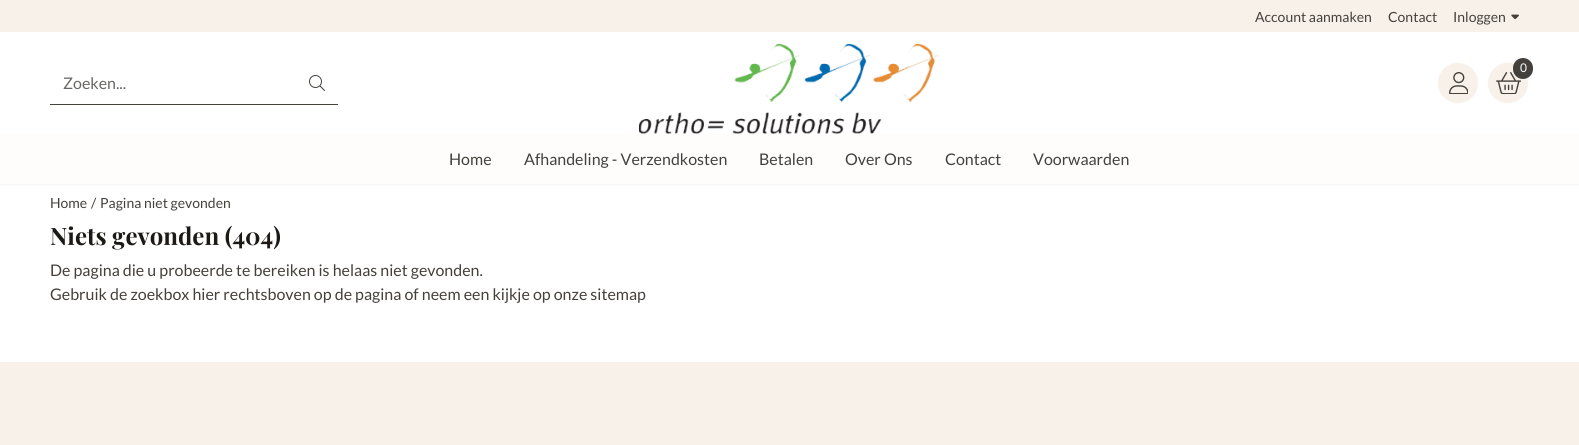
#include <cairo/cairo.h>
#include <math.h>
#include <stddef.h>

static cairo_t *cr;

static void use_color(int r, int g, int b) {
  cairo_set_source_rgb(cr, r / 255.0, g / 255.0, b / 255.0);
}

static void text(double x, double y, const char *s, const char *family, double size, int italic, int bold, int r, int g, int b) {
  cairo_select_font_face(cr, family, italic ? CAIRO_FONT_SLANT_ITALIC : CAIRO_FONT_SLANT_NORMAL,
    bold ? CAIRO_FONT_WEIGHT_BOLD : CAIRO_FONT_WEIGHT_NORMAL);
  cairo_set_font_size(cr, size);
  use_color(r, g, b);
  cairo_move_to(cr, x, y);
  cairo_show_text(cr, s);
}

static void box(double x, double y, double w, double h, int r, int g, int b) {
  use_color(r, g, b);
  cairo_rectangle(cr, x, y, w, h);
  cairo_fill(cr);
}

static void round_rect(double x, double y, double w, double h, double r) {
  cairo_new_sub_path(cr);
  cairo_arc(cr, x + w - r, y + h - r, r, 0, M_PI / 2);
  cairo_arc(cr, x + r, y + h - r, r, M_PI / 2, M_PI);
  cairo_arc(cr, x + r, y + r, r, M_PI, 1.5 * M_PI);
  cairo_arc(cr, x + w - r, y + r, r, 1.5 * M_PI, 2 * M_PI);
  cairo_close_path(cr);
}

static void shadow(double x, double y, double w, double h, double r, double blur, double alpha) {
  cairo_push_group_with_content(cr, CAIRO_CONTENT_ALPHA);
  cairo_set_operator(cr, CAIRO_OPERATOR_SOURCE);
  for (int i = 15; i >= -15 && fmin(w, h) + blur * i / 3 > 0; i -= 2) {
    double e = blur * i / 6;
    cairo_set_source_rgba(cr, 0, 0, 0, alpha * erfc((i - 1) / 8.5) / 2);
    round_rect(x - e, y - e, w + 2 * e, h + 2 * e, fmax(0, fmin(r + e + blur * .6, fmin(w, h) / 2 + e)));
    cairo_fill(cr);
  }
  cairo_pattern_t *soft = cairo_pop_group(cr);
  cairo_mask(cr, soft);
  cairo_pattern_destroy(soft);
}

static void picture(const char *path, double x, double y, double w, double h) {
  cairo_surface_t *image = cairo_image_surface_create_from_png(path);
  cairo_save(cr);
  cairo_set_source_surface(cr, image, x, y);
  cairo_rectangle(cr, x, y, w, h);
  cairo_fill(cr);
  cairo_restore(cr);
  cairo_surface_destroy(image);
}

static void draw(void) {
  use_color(255, 255, 255);
  cairo_paint(cr);
  box(0, 0, 1579, 32, 247, 241, 233);
  picture("img_01.png", 1511, 14, 8, 6);
  picture("img_02.png", 639, 44, 300, 90);
  cairo_arc(cr, 1458, 83, 20.5, 0, 2 * M_PI);
  cairo_fill_preserve(cr);
  use_color(254, 253, 252);
  cairo_set_line_width(cr, 1);
  cairo_stroke(cr);
  picture("img_03.png", 1449, 72, 19, 22);
  use_color(247, 241, 233);
  cairo_arc(cr, 1508, 83, 20.5, 0, 2 * M_PI);
  cairo_fill_preserve(cr);
  use_color(254, 253, 252);
  cairo_stroke(cr);
  picture("img_04.png", 1496, 72, 25, 22);
  use_color(68, 64, 60);
  round_rect(1513, 58, 20, 21, 10);
  cairo_fill(cr);
  box(50, 104, 288, 1, 68, 64, 60);
  picture("img_05.png", 309, 75, 16, 16);
  use_color(0, 0, 0);
  shadow(0, 135, 1579, 50, 0, 1, 0.05);
  box(0, 134, 1579, 50, 254, 253, 252);
  box(0, 362, 1579, 83, 247, 241, 233);
  text(1255, 22, "Account aanmaken", "Lato", 14, 0, 0, 68, 64, 60);
  text(1388, 22, "Contact", "Lato", 14, 0, 0, 68, 64, 60);
  text(1453, 22, "Inloggen", "Lato", 14, 0, 0, 68, 64, 60);
  text(1520, 72, "0", "Lato", 12, 0, 0, 255, 255, 255);
  text(63, 89, "Zoeken...", "Lato", 16, 0, 0, 105, 102, 99);
  text(449, 165, "Home", "Lato", 16, 0, 0, 68, 64, 60);
  text(524, 165, "Afhandeling - Verzendkosten", "Lato", 16, 0, 0, 68, 64, 60);
  text(759, 165, "Betalen", "Lato", 16, 0, 0, 68, 64, 60);
  text(845, 165, "Over Ons", "Lato", 16, 0, 0, 68, 64, 60);
  text(945, 165, "Contact", "Lato", 16, 0, 0, 68, 64, 60);
  text(1033, 165, "Voorwaarden", "Lato", 16, 0, 0, 68, 64, 60);
  text(50, 208, "Home", "Lato", 14, 0, 0, 68, 64, 60);
  text(91, 208, "/", "Lato", 14, 0, 0, 68, 64, 60);
  text(100, 208, "Pagina niet gevonden", "Lato", 14, 0, 0, 68, 64, 60);
  text(50, 245, "Niets gevonden (404)", "Playfair Display", 24, 0, 1, 28, 25, 23);
  text(50, 276, "De pagina die u probeerde te bereiken is helaas niet gevonden.", "Lato", 16, 0, 0, 68, 64, 60);
  text(50, 300, "Gebruik de zoekbox hier rechtsboven op de pagina of neem een kijkje op onze sitemap", "Lato", 16, 0, 0, 68, 64, 60);
}

int main(void) {
  cairo_surface_t *surface = cairo_image_surface_create(CAIRO_FORMAT_RGB24, 1579, 445);
  cr = cairo_create(surface);
  cairo_font_options_t *options = cairo_font_options_create();
  cairo_font_options_set_hint_metrics(options, CAIRO_HINT_METRICS_OFF);
  cairo_font_options_set_hint_style(options, CAIRO_HINT_STYLE_NONE);
  cairo_set_font_options(cr, options);
  cairo_set_miter_limit(cr, 4);
  draw();
  cairo_surface_write_to_png(surface, "out.png");
  cairo_font_options_destroy(options);
  cairo_destroy(cr);
  cairo_surface_destroy(surface);
  return 0;
}
